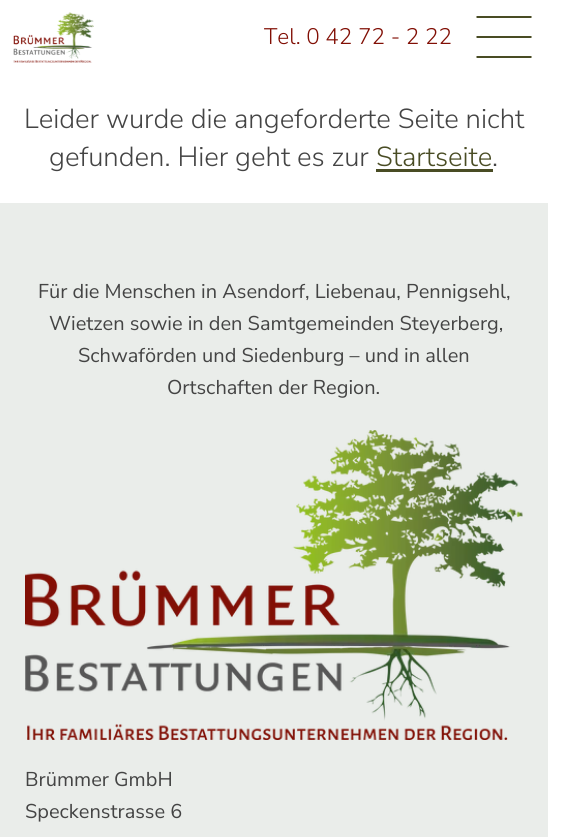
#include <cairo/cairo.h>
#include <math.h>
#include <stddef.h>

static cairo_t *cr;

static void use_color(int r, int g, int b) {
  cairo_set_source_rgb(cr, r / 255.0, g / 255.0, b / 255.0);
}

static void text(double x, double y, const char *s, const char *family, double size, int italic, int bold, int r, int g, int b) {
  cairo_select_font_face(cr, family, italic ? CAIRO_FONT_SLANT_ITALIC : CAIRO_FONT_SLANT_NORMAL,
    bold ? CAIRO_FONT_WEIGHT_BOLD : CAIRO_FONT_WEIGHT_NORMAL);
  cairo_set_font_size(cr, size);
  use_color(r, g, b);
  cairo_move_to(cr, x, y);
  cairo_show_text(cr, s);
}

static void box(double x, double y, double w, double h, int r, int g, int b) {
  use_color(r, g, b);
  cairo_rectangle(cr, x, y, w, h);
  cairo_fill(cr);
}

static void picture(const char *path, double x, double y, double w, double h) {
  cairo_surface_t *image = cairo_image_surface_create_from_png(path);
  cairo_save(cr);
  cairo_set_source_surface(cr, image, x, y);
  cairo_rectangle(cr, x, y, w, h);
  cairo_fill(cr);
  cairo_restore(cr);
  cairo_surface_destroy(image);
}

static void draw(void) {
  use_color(255, 255, 255);
  cairo_paint(cr);
  picture("img_01.png", 13, 12, 81, 51);
  use_color(73, 76, 36);
  cairo_new_path(cr);
  cairo_move_to(cr, 476, 17);
  cairo_line_to(cr, 477, 16);
  cairo_line_to(cr, 531, 16);
  cairo_line_to(cr, 532, 17);
  cairo_line_to(cr, 531, 18);
  cairo_line_to(cr, 477, 18);
  cairo_close_path(cr);
  cairo_move_to(cr, 476, 37);
  cairo_line_to(cr, 477, 36);
  cairo_line_to(cr, 531, 36);
  cairo_line_to(cr, 532, 37);
  cairo_line_to(cr, 531, 38);
  cairo_line_to(cr, 477, 38);
  cairo_close_path(cr);
  cairo_move_to(cr, 532, 57);
  cairo_line_to(cr, 531, 58);
  cairo_line_to(cr, 477, 58);
  cairo_line_to(cr, 476, 57);
  cairo_line_to(cr, 477, 56);
  cairo_line_to(cr, 531, 56);
  cairo_close_path(cr);
  cairo_fill(cr);
  box(376, 169, 117, 3, 73, 76, 36);
  box(0, 203, 548, 634, 234, 237, 234);
  picture("img_02.png", 25, 430, 498, 310);
  text(264, 44, "Tel. 0 42 72 - 2 22", "Nunito Sans ExtraLight", 22.5, 0, 0, 129, 15, 5);
  text(24, 128, "Leider wurde die angeforderte Seite nicht", "Nunito Sans ExtraLight", 27.5, 0, 0, 68, 68, 68);
  text(49, 166, "gefunden. Hier geht es zur", "Nunito Sans ExtraLight", 27.5, 0, 0, 68, 68, 68);
  text(376, 166, "Startseite", "Nunito Sans ExtraLight", 27.5, 0, 0, 73, 76, 36);
  text(492, 166, ".", "Nunito Sans ExtraLight", 27.5, 0, 0, 68, 68, 68);
  text(38, 298, "Für die Menschen in Asendorf, Liebenau, Pennigsehl,", "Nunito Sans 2 ExtraLight", 20, 0, 0, 68, 68, 68);
  text(49, 330, "Wietzen sowie in den Samtgemeinden Steyerberg,", "Nunito Sans 2 ExtraLight", 20, 0, 0, 68, 68, 68);
  text(78, 362, "Schwaförden und Siedenburg – und in allen", "Nunito Sans 2 ExtraLight", 20, 0, 0, 68, 68, 68);
  text(167, 394, "Ortschaften der Region.", "Nunito Sans 2 ExtraLight", 20, 0, 0, 68, 68, 68);
  text(25, 786, "Brümmer GmbH", "Nunito Sans 2 ExtraLight", 20, 0, 0, 68, 68, 68);
  text(25, 818, "Speckenstrasse 6", "Nunito Sans 2 ExtraLight", 20, 0, 0, 68, 68, 68);
}

int main(void) {
  cairo_surface_t *surface = cairo_image_surface_create(CAIRO_FORMAT_RGB24, 566, 837);
  cr = cairo_create(surface);
  cairo_font_options_t *options = cairo_font_options_create();
  cairo_font_options_set_hint_metrics(options, CAIRO_HINT_METRICS_OFF);
  cairo_font_options_set_hint_style(options, CAIRO_HINT_STYLE_NONE);
  cairo_set_font_options(cr, options);
  cairo_set_miter_limit(cr, 4);
  draw();
  cairo_surface_write_to_png(surface, "out.png");
  cairo_font_options_destroy(options);
  cairo_destroy(cr);
  cairo_surface_destroy(surface);
  return 0;
}
